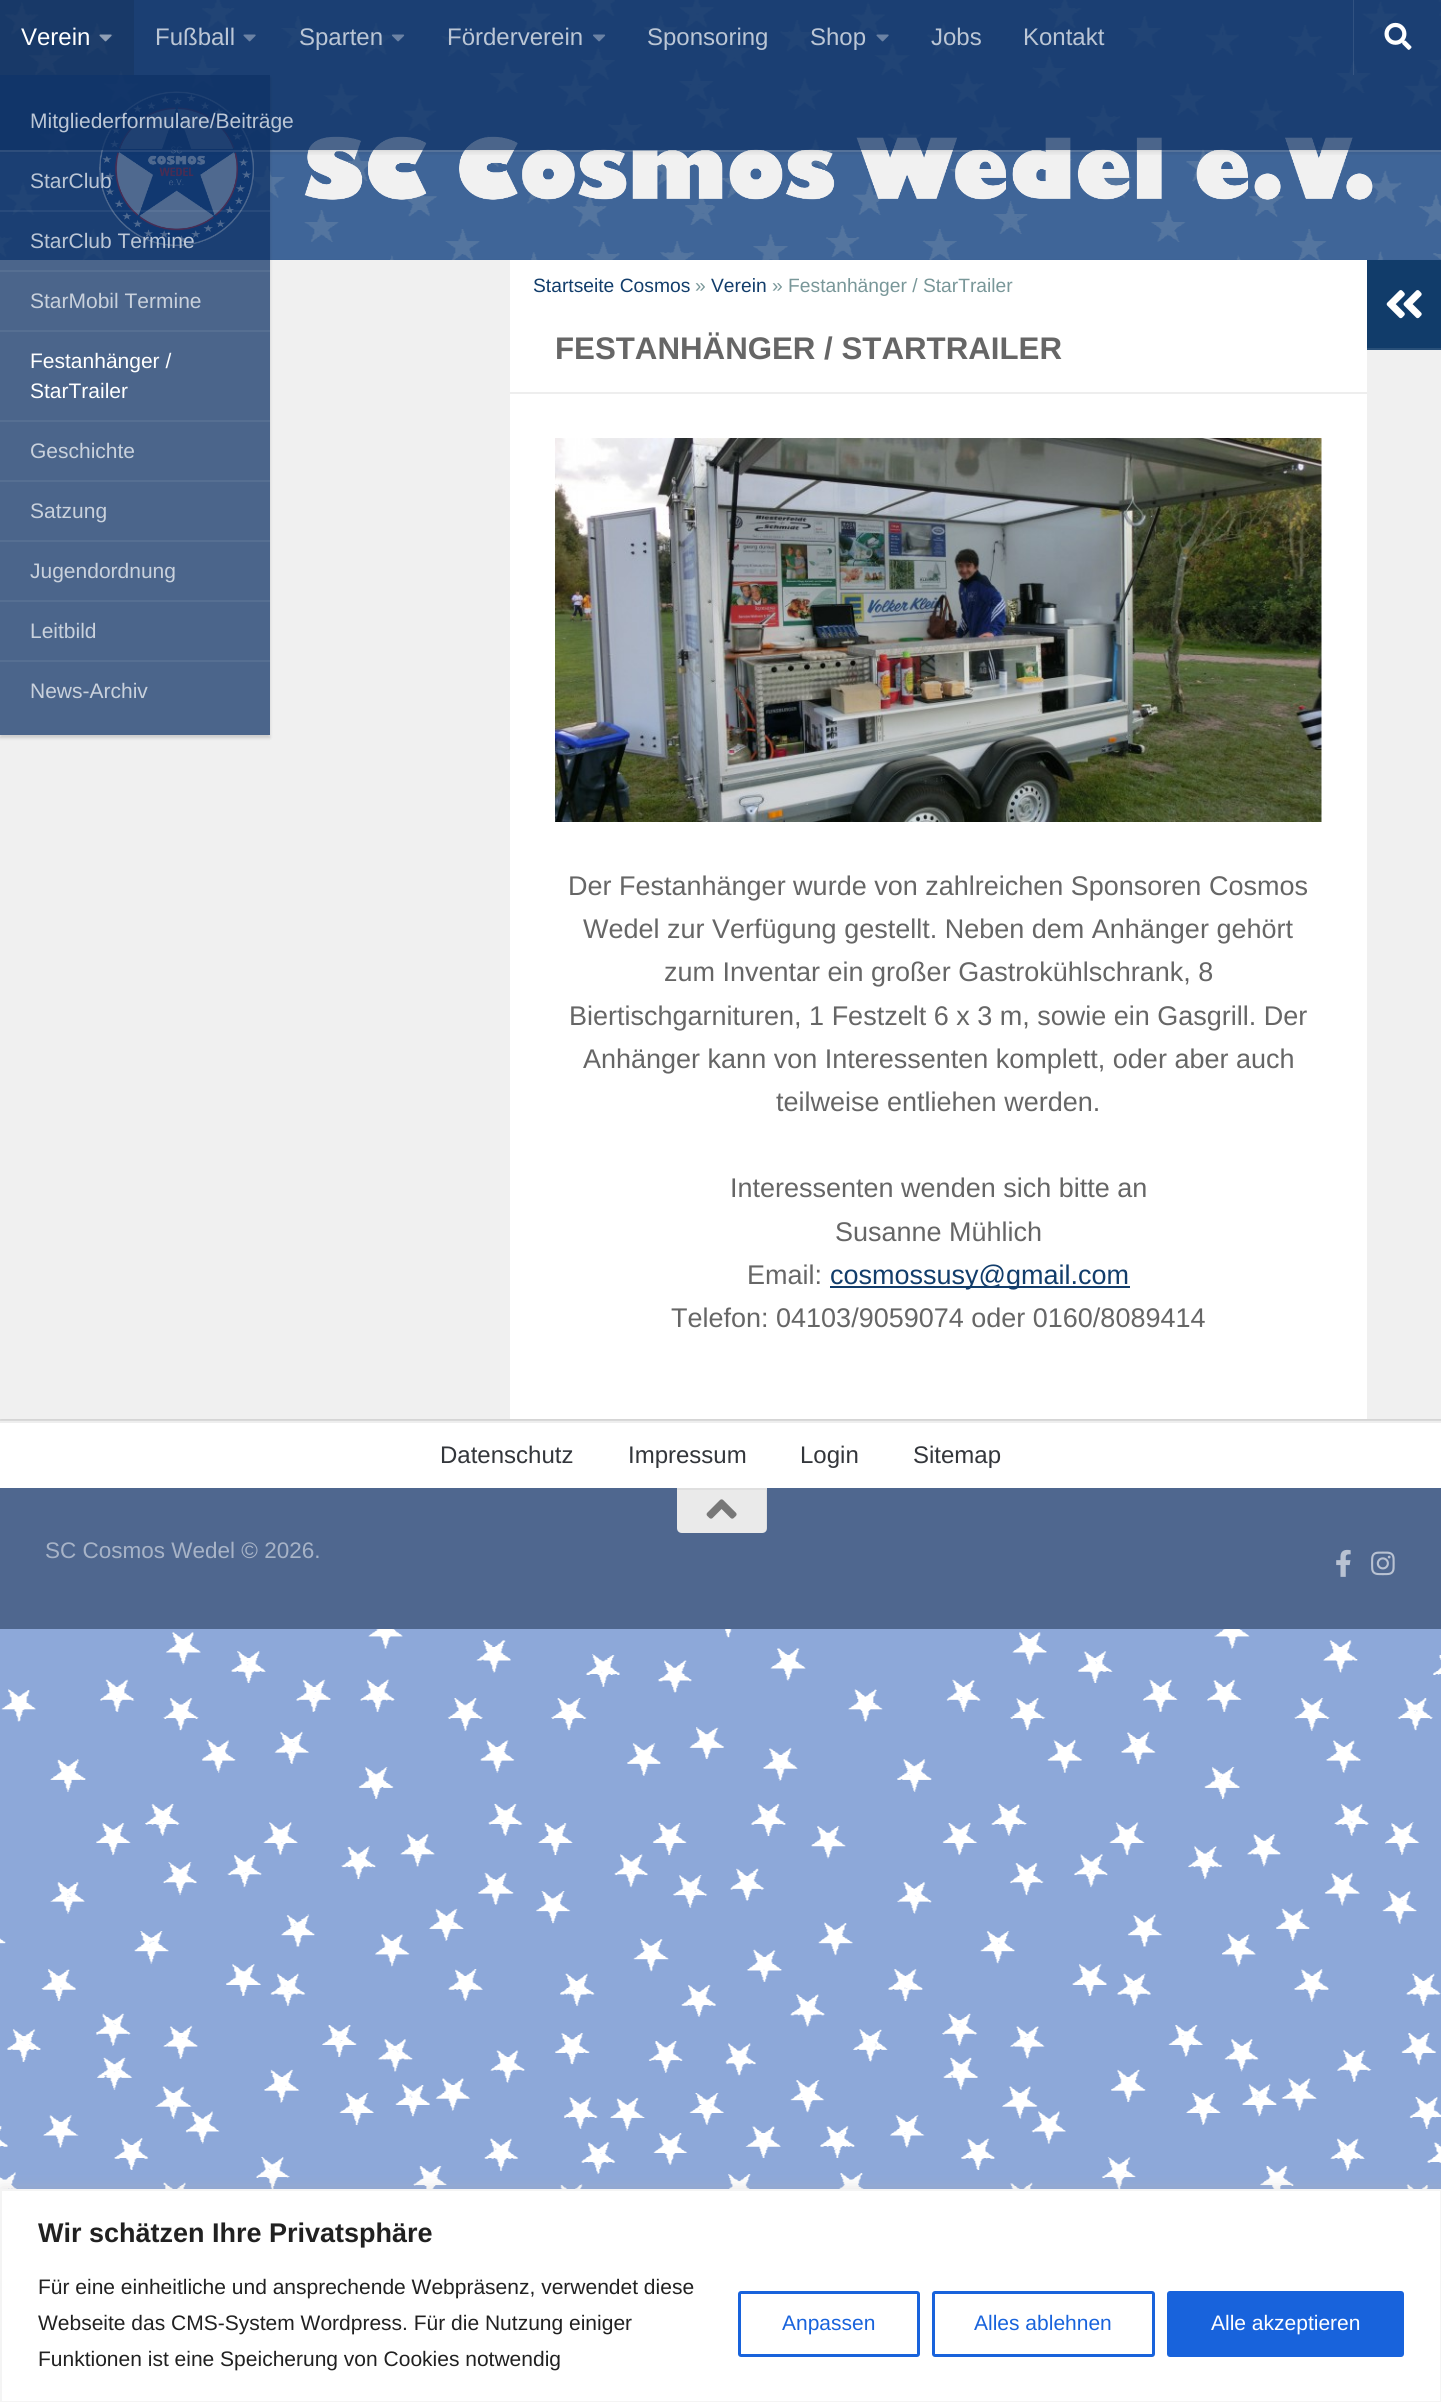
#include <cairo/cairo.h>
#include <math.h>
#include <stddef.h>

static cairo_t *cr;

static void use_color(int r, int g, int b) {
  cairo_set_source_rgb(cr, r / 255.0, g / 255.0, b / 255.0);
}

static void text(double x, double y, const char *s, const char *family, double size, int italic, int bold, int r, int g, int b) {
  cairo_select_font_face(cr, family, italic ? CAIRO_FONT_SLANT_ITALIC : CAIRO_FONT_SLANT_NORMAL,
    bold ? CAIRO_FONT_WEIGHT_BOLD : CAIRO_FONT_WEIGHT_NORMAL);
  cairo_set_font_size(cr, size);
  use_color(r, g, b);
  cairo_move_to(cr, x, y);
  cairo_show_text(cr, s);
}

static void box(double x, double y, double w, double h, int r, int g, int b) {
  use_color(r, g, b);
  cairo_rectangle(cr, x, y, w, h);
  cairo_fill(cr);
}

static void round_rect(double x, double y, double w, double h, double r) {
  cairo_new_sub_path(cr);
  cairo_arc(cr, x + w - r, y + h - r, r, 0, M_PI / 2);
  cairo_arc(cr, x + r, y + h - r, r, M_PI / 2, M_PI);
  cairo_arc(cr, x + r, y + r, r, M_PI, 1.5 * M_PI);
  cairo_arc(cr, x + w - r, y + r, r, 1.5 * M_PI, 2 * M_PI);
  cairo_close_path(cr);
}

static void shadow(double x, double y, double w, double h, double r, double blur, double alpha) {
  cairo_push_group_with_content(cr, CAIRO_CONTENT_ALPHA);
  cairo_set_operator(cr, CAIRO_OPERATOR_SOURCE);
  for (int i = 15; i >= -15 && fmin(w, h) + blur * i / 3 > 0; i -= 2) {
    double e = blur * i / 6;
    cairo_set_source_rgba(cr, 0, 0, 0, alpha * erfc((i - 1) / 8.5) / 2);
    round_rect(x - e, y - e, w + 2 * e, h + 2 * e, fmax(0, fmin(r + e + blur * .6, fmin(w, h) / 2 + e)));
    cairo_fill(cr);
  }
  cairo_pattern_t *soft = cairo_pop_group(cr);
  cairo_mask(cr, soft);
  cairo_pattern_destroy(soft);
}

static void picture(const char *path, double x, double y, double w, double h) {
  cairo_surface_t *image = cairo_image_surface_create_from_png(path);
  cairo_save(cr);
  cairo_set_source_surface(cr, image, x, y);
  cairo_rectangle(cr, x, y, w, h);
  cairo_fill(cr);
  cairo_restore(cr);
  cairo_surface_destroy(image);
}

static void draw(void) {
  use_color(255, 255, 255);
  cairo_paint(cr);
  picture("img_01.png", 0, 0, 1441, 2189);
  box(0, 1419, 1441, 2, 234, 234, 234);
  use_color(0, 0, 0);
  shadow(0, 261, 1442, 1160, 0, 1, 0.1);
  cairo_set_source_rgba(cr, 0.176, 0.333, 0.537, 0.81);
  cairo_rectangle(cr, 0, 0, 1441, 260);
  cairo_fill(cr);
  picture("img_08.png", 99, 91, 1274, 155);
  cairo_set_source_rgba(cr, 1, 1, 1, 0.15);
  cairo_new_path(cr);
  cairo_move_to(cr, 0, 150);
  cairo_line_to(cr, 0, 152);
  cairo_line_to(cr, 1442, 152);
  cairo_line_to(cr, 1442, 2);
  cairo_line_to(cr, 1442, 150);
  cairo_close_path(cr);
  cairo_fill(cr);
  cairo_save(cr);
  cairo_rectangle(cr, 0, 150, 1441, 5);
  cairo_clip(cr);
  use_color(0, 0, 0);
  shadow(0, 0, 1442, 150, 0, 4, 0.2);
  cairo_restore(cr);
  cairo_set_source_rgba(cr, 0.055, 0.196, 0.4, 0.73);
  cairo_rectangle(cr, 0, 0, 1441, 150);
  cairo_fill(cr);
  cairo_set_source_rgba(cr, 0, 0, 0, 0.1);
  cairo_rectangle(cr, 0, 0, 134, 75);
  cairo_fill(cr);
  picture("img_02.png", 99, 34, 13, 8);
  box(0, 260, 510, 1159, 240, 240, 240);
  cairo_save(cr);
  cairo_set_fill_rule(cr, CAIRO_FILL_RULE_EVEN_ODD);
  cairo_new_path(cr);
  cairo_move_to(cr, 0, 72);
  cairo_line_to(cr, 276, 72);
  cairo_line_to(cr, 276, 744);
  cairo_line_to(cr, 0, 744);
  cairo_close_path(cr);
  cairo_move_to(cr, 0, 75);
  cairo_line_to(cr, 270, 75);
  cairo_line_to(cr, 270, 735);
  cairo_line_to(cr, 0, 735);
  cairo_close_path(cr);
  cairo_clip(cr);
  use_color(0, 0, 0);
  shadow(0, 78, 270, 660, 0, 1.5, 0.15);
  cairo_restore(cr);
  cairo_set_source_rgba(cr, 0.055, 0.196, 0.4, 0.73);
  cairo_rectangle(cr, 0, 75, 270, 660);
  cairo_fill(cr);
  cairo_set_source_rgba(cr, 1, 1, 1, 0.06);
  cairo_rectangle(cr, 0, 150, 270, 2);
  cairo_fill(cr);
  cairo_rectangle(cr, 0, 210, 270, 2);
  cairo_fill(cr);
  box(0, 270, 270, 2, 86, 111, 146);
  box(0, 330, 270, 2, 86, 111, 146);
  box(0, 420, 270, 2, 86, 111, 146);
  box(0, 480, 270, 2, 86, 111, 146);
  box(0, 540, 270, 2, 86, 111, 146);
  box(0, 600, 270, 2, 86, 111, 146);
  box(0, 660, 270, 2, 86, 111, 146);
  picture("img_03.png", 243, 34, 13, 8);
  picture("img_04.png", 392, 34, 13, 8);
  picture("img_05.png", 593, 34, 13, 8);
  picture("img_06.png", 876, 34, 13, 8);
  cairo_set_source_rgba(cr, 1, 1, 1, 0.1);
  cairo_rectangle(cr, 1353, 0, 1, 75);
  cairo_fill(cr);
  picture("img_07.png", 1384, 22, 28, 28);
  box(510, 260, 857, 1159, 255, 255, 255);
  box(510, 392, 857, 2, 238, 238, 238);
  picture("img_09.png", 555, 438, 767, 384);
  box(830, 1286, 300, 2, 18, 61, 107);
  box(1367, 260, 74, 88, 17, 60, 106);
  box(1367, 348, 74, 2, 41, 80, 121);
  picture("img_10.png", 1386, 290, 36, 29);
  box(1367, 350, 74, 1069, 240, 240, 240);
  box(0, 1423, 1441, 65, 255, 255, 255);
  box(0, 1421, 1441, 2, 238, 238, 238);
  box(0, 1488, 1441, 141, 79, 103, 143);
  use_color(234, 234, 234);
  cairo_new_path(cr);
  cairo_move_to(cr, 677, 1488);
  cairo_line_to(cr, 767, 1488);
  cairo_line_to(cr, 767, 1528);
  cairo_curve_to(cr, 767, 1531, 765, 1533, 762, 1533);
  cairo_line_to(cr, 682, 1533);
  cairo_curve_to(cr, 679, 1533, 677, 1531, 677, 1528);
  cairo_close_path(cr);
  cairo_fill(cr);
  cairo_set_source_rgba(cr, 0, 0, 0, 0.05);
  cairo_new_path(cr);
  cairo_move_to(cr, 677, 1488);
  cairo_line_to(cr, 677, 1490);
  cairo_line_to(cr, 766, 1490);
  cairo_line_to(cr, 766, 1531);
  cairo_curve_to(cr, 767, 1530, 767, 1529, 767, 1528);
  cairo_line_to(cr, 767, 1488);
  cairo_close_path(cr);
  cairo_fill(cr);
  picture("img_11.png", 706, 1499, 31, 20);
  picture("img_12.png", 1336, 1549, 15, 28);
  picture("img_13.png", 1371, 1551, 24, 25);
  use_color(172, 171, 171);
  shadow(0, 2187, 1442, 215, 0, 7.5, 0.3);
  use_color(255, 255, 255);
  cairo_rectangle(cr, 1, 2190, 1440, 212);
  cairo_fill_preserve(cr);
  use_color(244, 244, 244);
  cairo_stroke(cr);
  round_rect(739.5, 2292.5, 179, 63, 1.5);
  use_color(24, 99, 220);
  cairo_set_line_width(cr, 3);
  cairo_stroke(cr);
  round_rect(933.5, 2292.5, 220, 63, 1.5);
  cairo_stroke(cr);
  round_rect(1168.5, 2292.5, 234, 63, 1.5);
  cairo_fill_preserve(cr);
  cairo_stroke(cr);
  text(21, 45, "Verein", "Liberation Sans", 24, 0, 0, 255, 255, 255);
  text(30, 128, "Mitgliederformulare/Beiträge", "Liberation Sans", 21, 0, 0, 187, 198, 213);
  text(30, 188, "StarClub", "Liberation Sans", 21, 0, 0, 187, 198, 213);
  text(30, 248, "StarClub Termine", "Liberation Sans", 21, 0, 0, 187, 198, 213);
  text(30, 308, "StarMobil Termine", "Liberation Sans", 21, 0, 0, 201, 209, 220);
  text(30, 368, "Festanhänger /", "Liberation Sans", 21, 0, 0, 255, 255, 255);
  text(30, 398, "StarTrailer", "Liberation Sans", 21, 0, 0, 255, 255, 255);
  text(30, 458, "Geschichte", "Liberation Sans", 21, 0, 0, 201, 209, 220);
  text(30, 518, "Satzung", "Liberation Sans", 21, 0, 0, 201, 209, 220);
  text(30, 578, "Jugendordnung", "Liberation Sans", 21, 0, 0, 201, 209, 220);
  text(30, 638, "Leitbild", "Liberation Sans", 21, 0, 0, 201, 209, 220);
  text(30, 698, "News-Archiv", "Liberation Sans", 21, 0, 0, 201, 209, 220);
  text(155, 45, "Fußball", "Liberation Sans", 24, 0, 0, 187, 198, 213);
  text(299, 45, "Sparten", "Liberation Sans", 24, 0, 0, 187, 198, 213);
  text(447, 45, "Förderverein", "Liberation Sans", 24, 0, 0, 187, 198, 213);
  text(647, 45, "Sponsoring", "Liberation Sans", 24, 0, 0, 187, 198, 213);
  text(810, 45, "Shop", "Liberation Sans", 24, 0, 0, 187, 198, 213);
  text(931, 45, "Jobs", "Liberation Sans", 24, 0, 0, 187, 198, 213);
  text(1023, 45, "Kontakt", "Liberation Sans", 24, 0, 0, 187, 198, 213);
  text(533, 292, "Startseite Cosmos", "Liberation Sans", 19.25, 0, 0, 18, 61, 107);
  text(695, 292, "»", "Liberation Sans", 19.25, 0, 0, 121, 151, 153);
  text(711, 292, "Verein", "Liberation Sans", 19.25, 0, 0, 18, 61, 107);
  text(772, 292, "» Festanhänger / StarTrailer", "Liberation Sans", 19.25, 0, 0, 121, 151, 153);
  text(555, 359, "FESTANHÄNGER / STARTRAILER", "Liberation Sans", 31.25, 0, 1, 102, 102, 102);
  text(568, 895, "Der Festanhänger wurde von zahlreichen Sponsoren Cosmos", "Liberation Sans", 27, 0, 0, 102, 102, 102);
  text(583, 938, "Wedel zur Verfügung gestellt. Neben dem Anhänger gehört", "Liberation Sans", 27, 0, 0, 102, 102, 102);
  text(664, 981, "zum Inventar ein großer Gastrokühlschrank, 8", "Liberation Sans", 27, 0, 0, 102, 102, 102);
  text(569, 1025, "Biertischgarnituren, 1 Festzelt 6 x 3 m, sowie ein Gasgrill. Der", "Liberation Sans", 27, 0, 0, 102, 102, 102);
  text(583, 1068, "Anhänger kann von Interessenten komplett, oder aber auch", "Liberation Sans", 27, 0, 0, 102, 102, 102);
  text(776, 1111, "teilweise entliehen werden.", "Liberation Sans", 27, 0, 0, 102, 102, 102);
  text(730, 1197, "Interessenten wenden sich bitte an", "Liberation Sans", 27, 0, 0, 102, 102, 102);
  text(835, 1241, "Susanne Mühlich", "Liberation Sans", 27, 0, 0, 102, 102, 102);
  text(747, 1284, "Email:", "Liberation Sans", 27, 0, 0, 102, 102, 102);
  text(830, 1284, "cosmossusy@gmail.com", "Liberation Sans", 27, 0, 0, 18, 61, 107);
  text(671, 1327, "Telefon: 04103/9059074 oder 0160/8089414", "Liberation Sans", 27, 0, 0, 102, 102, 102);
  text(440, 1463, "Datenschutz", "Liberation Sans", 24, 0, 0, 51, 54, 59);
  text(628, 1463, "Impressum", "Liberation Sans", 24, 0, 0, 51, 54, 59);
  text(800, 1463, "Login", "Liberation Sans", 24, 0, 0, 51, 54, 59);
  text(913, 1463, "Sitemap", "Liberation Sans", 24, 0, 0, 51, 54, 59);
  text(45, 1558, "SC Cosmos Wedel © 2026.", "Liberation Sans", 22.5, 0, 0, 167, 179, 199);
  text(38, 2242, "Wir schätzen Ihre Privatsphäre", "Liberation Sans", 27, 0, 1, 33, 33, 33);
  text(38, 2294, "Für eine einheitliche und ansprechende Webpräsenz, verwendet diese", "Liberation Sans", 21, 0, 0, 33, 33, 33);
  text(38, 2330, "Webseite das CMS-System Wordpress. Für die Nutzung einiger", "Liberation Sans", 21, 0, 0, 33, 33, 33);
  text(38, 2366, "Funktionen ist eine Speicherung von Cookies notwendig", "Liberation Sans", 21, 0, 0, 33, 33, 33);
  text(782, 2330, "Anpassen", "Liberation Sans", 21, 0, 0, 24, 99, 220);
  text(974, 2330, "Alles ablehnen", "Liberation Sans", 21, 0, 0, 24, 99, 220);
  text(1211, 2330, "Alle akzeptieren", "Liberation Sans", 21, 0, 0, 255, 255, 255);
}

int main(void) {
  cairo_surface_t *surface = cairo_image_surface_create(CAIRO_FORMAT_RGB24, 1441, 2402);
  cr = cairo_create(surface);
  cairo_font_options_t *options = cairo_font_options_create();
  cairo_font_options_set_hint_metrics(options, CAIRO_HINT_METRICS_OFF);
  cairo_font_options_set_hint_style(options, CAIRO_HINT_STYLE_NONE);
  cairo_set_font_options(cr, options);
  cairo_set_miter_limit(cr, 4);
  draw();
  cairo_surface_write_to_png(surface, "out.png");
  cairo_font_options_destroy(options);
  cairo_destroy(cr);
  cairo_surface_destroy(surface);
  return 0;
}
